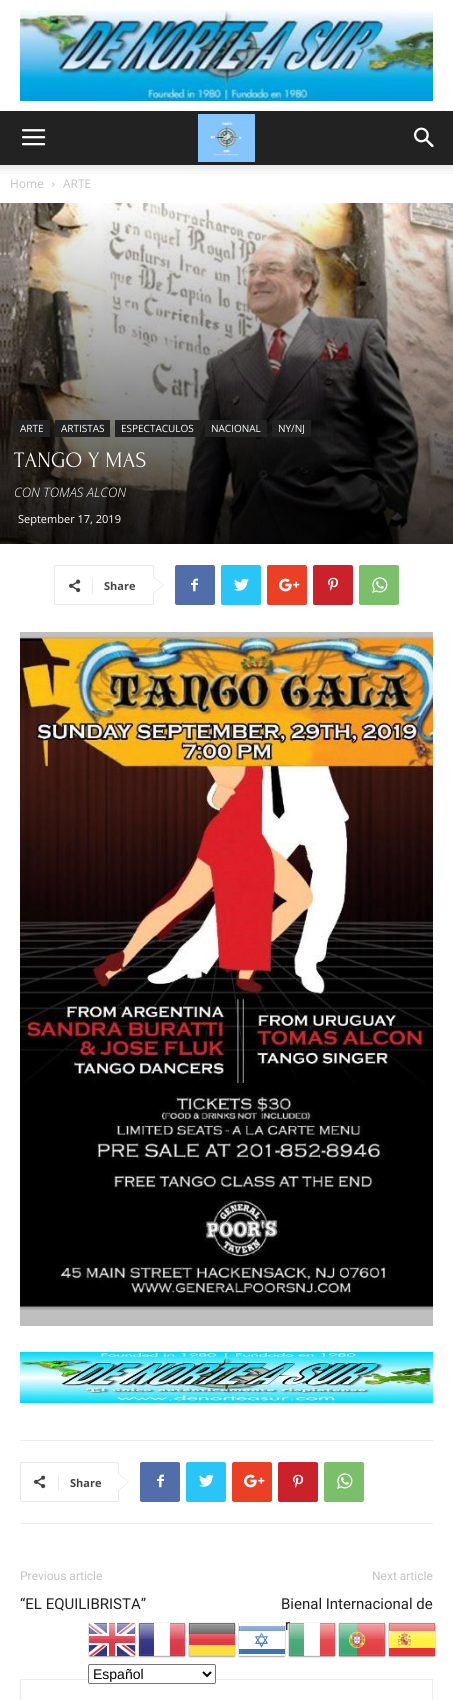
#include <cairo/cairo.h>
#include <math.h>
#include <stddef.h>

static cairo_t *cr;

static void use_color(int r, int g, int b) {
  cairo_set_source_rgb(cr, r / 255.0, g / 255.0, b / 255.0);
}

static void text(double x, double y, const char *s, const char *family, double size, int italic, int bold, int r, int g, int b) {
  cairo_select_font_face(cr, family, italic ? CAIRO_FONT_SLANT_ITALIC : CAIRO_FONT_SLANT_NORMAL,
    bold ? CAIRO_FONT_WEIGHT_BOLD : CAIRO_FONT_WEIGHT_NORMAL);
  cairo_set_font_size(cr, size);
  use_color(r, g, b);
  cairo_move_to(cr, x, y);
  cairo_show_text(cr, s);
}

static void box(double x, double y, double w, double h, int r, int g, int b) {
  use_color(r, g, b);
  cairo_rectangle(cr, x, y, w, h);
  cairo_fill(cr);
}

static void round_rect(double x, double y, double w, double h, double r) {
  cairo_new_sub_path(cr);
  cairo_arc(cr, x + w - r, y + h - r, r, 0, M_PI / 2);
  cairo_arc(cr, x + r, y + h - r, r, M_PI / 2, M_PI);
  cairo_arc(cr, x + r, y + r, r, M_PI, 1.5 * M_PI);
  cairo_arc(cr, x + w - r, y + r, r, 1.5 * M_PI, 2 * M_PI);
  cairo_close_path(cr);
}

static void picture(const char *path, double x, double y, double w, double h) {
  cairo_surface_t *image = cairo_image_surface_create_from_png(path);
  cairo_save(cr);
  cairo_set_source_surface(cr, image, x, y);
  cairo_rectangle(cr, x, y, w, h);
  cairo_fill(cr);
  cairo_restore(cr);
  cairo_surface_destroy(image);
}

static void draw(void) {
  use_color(255, 255, 255);
  cairo_paint(cr);
  picture("img_01.png", 20, 10, 413, 91);
  box(0, 111, 453, 54, 34, 34, 34);
  picture("img_02.png", 22, 129, 24, 17);
  picture("img_03.png", 198, 114, 57, 48);
  picture("img_04.png", 414, 127, 20, 21);
  picture("img_05.png", 0, 165, 453, 9);
  picture("img_06.png", 52, 182, 3, 5);
  picture("img_07.png", 0, 203, 453, 341);
  box(14, 420, 36, 17, 34, 34, 34);
  box(55, 420, 55, 17, 34, 34, 34);
  box(115, 420, 85, 17, 34, 34, 34);
  box(205, 420, 62, 17, 34, 34, 34);
  box(272, 420, 39, 17, 34, 34, 34);
  round_rect(54.5, 565.5, 99, 39, 1.5);
  use_color(233, 233, 233);
  cairo_set_line_width(cr, 1);
  cairo_stroke(cr);
  cairo_new_path(cr);
  cairo_move_to(cr, 153, 594);
  cairo_line_to(cr, 153, 576);
  cairo_line_to(cr, 164, 585);
  cairo_close_path(cr);
  cairo_fill(cr);
  picture("img_08.png", 69, 579, 12, 14);
  box(92, 578, 1, 16, 235, 235, 235);
  use_color(255, 255, 255);
  cairo_new_path(cr);
  cairo_move_to(cr, 153, 593);
  cairo_line_to(cr, 153, 577);
  cairo_line_to(cr, 163, 585);
  cairo_close_path(cr);
  cairo_fill(cr);
  use_color(81, 110, 171);
  round_rect(175, 565, 40, 40, 2);
  cairo_fill(cr);
  picture("img_09.png", 191, 578, 7, 14);
  use_color(41, 197, 246);
  round_rect(221, 565, 40, 40, 2);
  cairo_fill(cr);
  picture("img_10.png", 234, 578, 15, 13);
  use_color(235, 64, 38);
  round_rect(267, 565, 40, 40, 2);
  cairo_fill(cr);
  picture("img_11.png", 279, 578, 21, 14);
  use_color(202, 33, 42);
  round_rect(313, 565, 40, 40, 2);
  cairo_fill(cr);
  picture("img_12.png", 328, 577, 11, 14);
  use_color(123, 191, 106);
  round_rect(359, 565, 40, 40, 2);
  cairo_fill(cr);
  picture("img_13.png", 372, 577, 16, 16);
  picture("img_14.png", 20, 632, 413, 694);
  picture("img_15.png", 20, 1352, 413, 51);
  box(20, 1440, 413, 1, 237, 237, 237);
  box(20, 1523, 413, 1, 237, 237, 237);
  round_rect(20.5, 1462.5, 98, 39, 1.5);
  use_color(233, 233, 233);
  cairo_stroke(cr);
  cairo_new_path(cr);
  cairo_move_to(cr, 118, 1491);
  cairo_line_to(cr, 118, 1473);
  cairo_line_to(cr, 129, 1482);
  cairo_close_path(cr);
  cairo_fill(cr);
  picture("img_08.png", 34, 1475, 12, 14);
  box(58, 1475, 1, 16, 235, 235, 235);
  use_color(255, 255, 255);
  cairo_new_path(cr);
  cairo_move_to(cr, 118, 1490);
  cairo_line_to(cr, 118, 1474);
  cairo_line_to(cr, 128, 1482);
  cairo_close_path(cr);
  cairo_fill(cr);
  use_color(81, 110, 171);
  round_rect(140, 1462, 40, 40, 2);
  cairo_fill(cr);
  picture("img_09.png", 157, 1474, 7, 14);
  use_color(41, 197, 246);
  round_rect(186, 1462, 40, 40, 2);
  cairo_fill(cr);
  picture("img_10.png", 199, 1474, 15, 13);
  use_color(235, 64, 38);
  round_rect(232, 1462, 40, 40, 2);
  cairo_fill(cr);
  picture("img_11.png", 244, 1474, 21, 14);
  use_color(202, 33, 42);
  round_rect(278, 1462, 40, 40, 2);
  cairo_fill(cr);
  picture("img_12.png", 293, 1474, 11, 14);
  use_color(123, 191, 106);
  round_rect(324, 1462, 40, 40, 2);
  cairo_fill(cr);
  picture("img_13.png", 337, 1473, 16, 16);
  cairo_rectangle(cr, 20.5, 1679.5, 412, 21);
  use_color(237, 237, 237);
  cairo_stroke(cr);
  picture("img_16.png", 88, 1622, 48, 36);
  picture("img_17.png", 138, 1622, 48, 36);
  picture("img_18.png", 188, 1622, 48, 36);
  picture("img_21.png", 338, 1622, 48, 36);
  picture("img_22.png", 388, 1622, 48, 36);
  use_color(255, 255, 255);
  round_rect(88.5, 1664.5, 127, 19, 1.5);
  cairo_fill_preserve(cr);
  use_color(118, 118, 118);
  cairo_stroke(cr);
  cairo_new_path(cr);
  cairo_move_to(cr, 203, 1672);
  cairo_line_to(cr, 207, 1676);
  cairo_line_to(cr, 211, 1672);
  use_color(0, 0, 0);
  cairo_set_line_width(cr, 2);
  cairo_stroke(cr);
  text(10, 188, "Home", "Open Sans", 12, 0, 0, 195, 195, 195);
  text(63, 188, "ARTE", "Open Sans", 12, 0, 0, 195, 195, 195);
  text(20, 432, "ARTE", "Open Sans", 10, 0, 0, 255, 255, 255);
  text(61, 432, "ARTISTAS", "Open Sans", 10, 0, 0, 255, 255, 255);
  text(121, 432, "ESPECTACULOS", "Open Sans", 10, 0, 0, 255, 255, 255);
  text(211, 432, "NACIONAL", "Open Sans", 10, 0, 0, 255, 255, 255);
  text(278, 432, "NY/NJ", "Open Sans", 10, 0, 0, 255, 255, 255);
  text(14, 467, "TANGO Y MAS", "Forum", 22, 0, 0, 255, 255, 255);
  text(14, 497, "CON TOMAS ALCON", "Open Sans Light", 13, 1, 0, 255, 255, 255);
  text(18, 523, "September 17, 2019", "Open Sans", 11, 0, 0, 255, 255, 255);
  text(104, 590, "Share", "Open Sans", 11, 0, 1, 68, 68, 68);
  text(70, 1487, "Share", "Open Sans", 11, 0, 1, 68, 68, 68);
  text(20, 1580, "Previous article", "Roboto", 12, 0, 0, 195, 195, 195);
  text(20, 1609, "“EL EQUILIBRISTA”", "Roboto", 15, 0, 0, 34, 34, 34);
  text(372, 1580, "Next article", "Roboto", 12, 0, 0, 195, 195, 195);
  text(281, 1609, "Bienal Internacional de", "Roboto", 15, 0, 0, 34, 34, 34);
  text(285, 1630, "r", "Roboto", 15, 0, 0, 34, 34, 34);
  picture("img_19.png", 238, 1622, 48, 36);
  picture("img_20.png", 288, 1622, 48, 36);
  text(93, 1679, "Español", "Liberation Sans", 14, 0, 0, 0, 0, 0);
}

int main(void) {
  cairo_surface_t *surface = cairo_image_surface_create(CAIRO_FORMAT_RGB24, 453, 1700);
  cr = cairo_create(surface);
  cairo_font_options_t *options = cairo_font_options_create();
  cairo_font_options_set_hint_metrics(options, CAIRO_HINT_METRICS_OFF);
  cairo_font_options_set_hint_style(options, CAIRO_HINT_STYLE_NONE);
  cairo_set_font_options(cr, options);
  cairo_set_miter_limit(cr, 4);
  draw();
  cairo_surface_write_to_png(surface, "out.png");
  cairo_font_options_destroy(options);
  cairo_destroy(cr);
  cairo_surface_destroy(surface);
  return 0;
}
